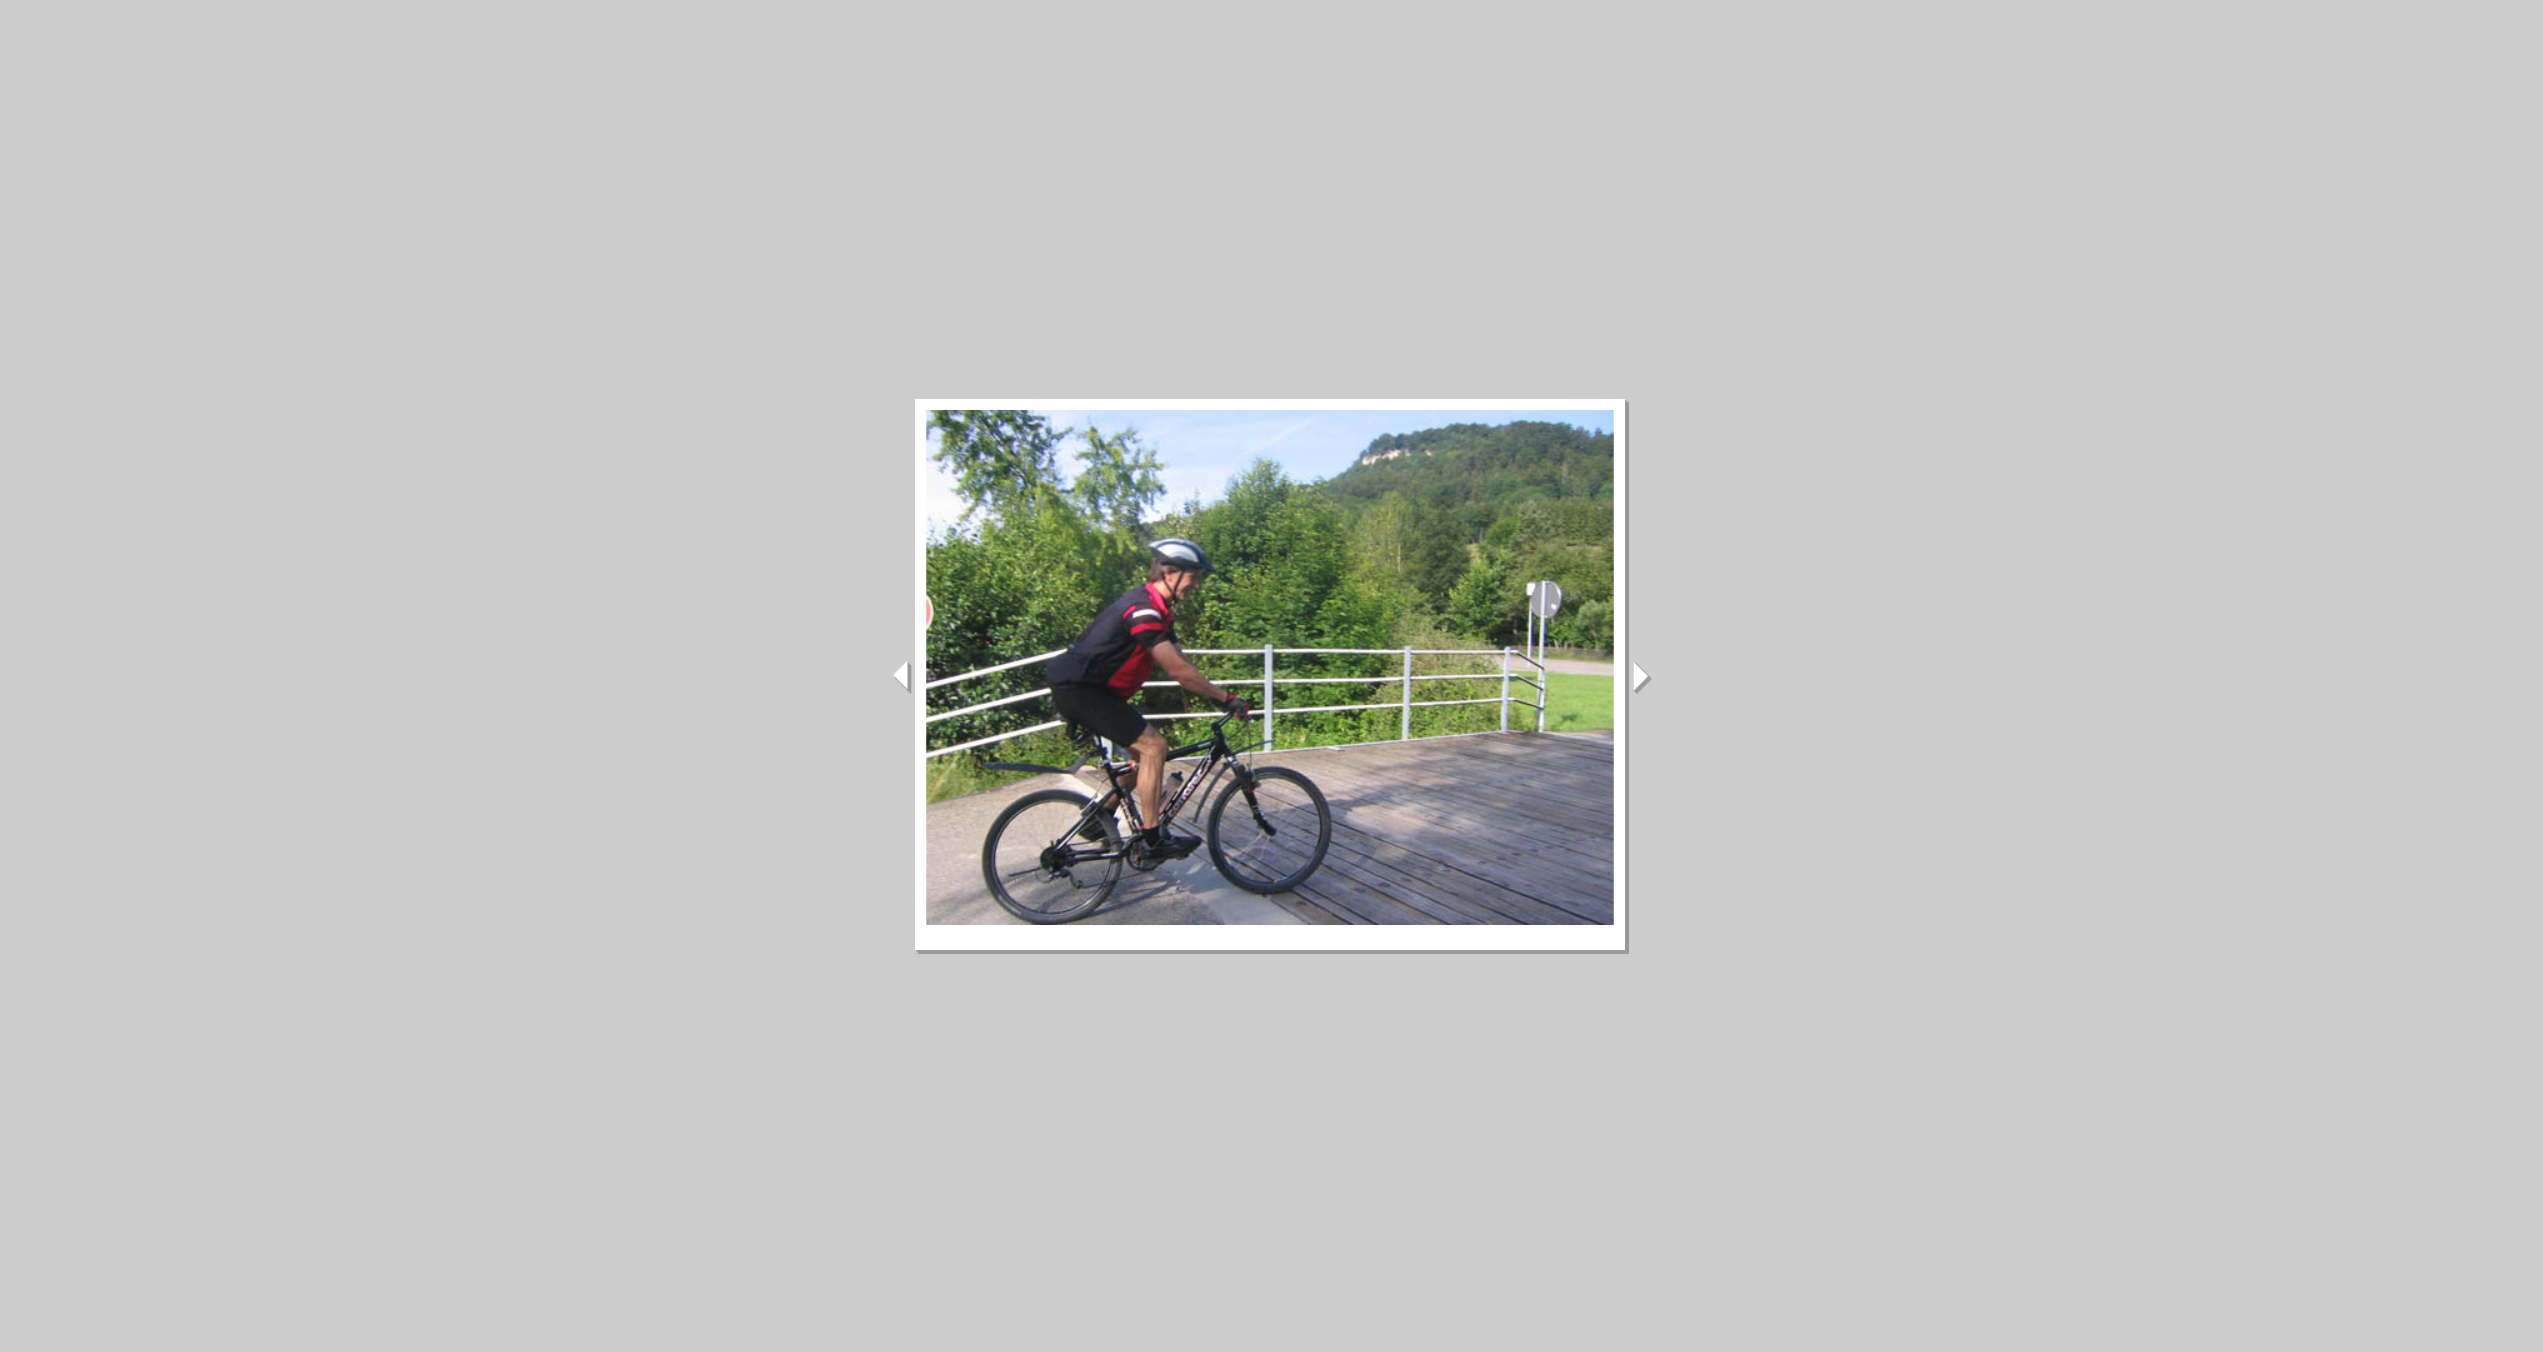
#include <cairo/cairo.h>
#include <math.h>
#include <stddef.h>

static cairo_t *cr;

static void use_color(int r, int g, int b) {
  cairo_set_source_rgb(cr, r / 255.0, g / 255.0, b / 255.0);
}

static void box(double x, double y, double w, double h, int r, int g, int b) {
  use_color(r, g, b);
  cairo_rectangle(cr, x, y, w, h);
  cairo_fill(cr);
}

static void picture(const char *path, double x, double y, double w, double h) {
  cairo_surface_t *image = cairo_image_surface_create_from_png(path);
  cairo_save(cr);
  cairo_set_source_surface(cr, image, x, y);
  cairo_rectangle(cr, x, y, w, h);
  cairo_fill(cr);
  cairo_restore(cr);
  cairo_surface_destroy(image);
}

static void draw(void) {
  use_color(204, 204, 204);
  cairo_paint(cr);
  box(915, 399, 710, 551, 255, 255, 255);
  picture("img_01.png", 926, 410, 688, 515);
  box(1625, 399, 4, 551, 153, 153, 153);
  picture("img_02.png", 1625, 399, 4, 4);
  box(915, 950, 714, 4, 153, 153, 153);
  picture("img_03.png", 915, 950, 4, 4);
  picture("img_04.png", 893, 661, 19, 33);
  picture("img_05.png", 1633, 662, 19, 32);
}

int main(void) {
  cairo_surface_t *surface = cairo_image_surface_create(CAIRO_FORMAT_RGB24, 2543, 1352);
  cr = cairo_create(surface);
  cairo_font_options_t *options = cairo_font_options_create();
  cairo_font_options_set_hint_metrics(options, CAIRO_HINT_METRICS_OFF);
  cairo_font_options_set_hint_style(options, CAIRO_HINT_STYLE_NONE);
  cairo_set_font_options(cr, options);
  cairo_set_miter_limit(cr, 4);
  draw();
  cairo_surface_write_to_png(surface, "out.png");
  cairo_font_options_destroy(options);
  cairo_destroy(cr);
  cairo_surface_destroy(surface);
  return 0;
}
